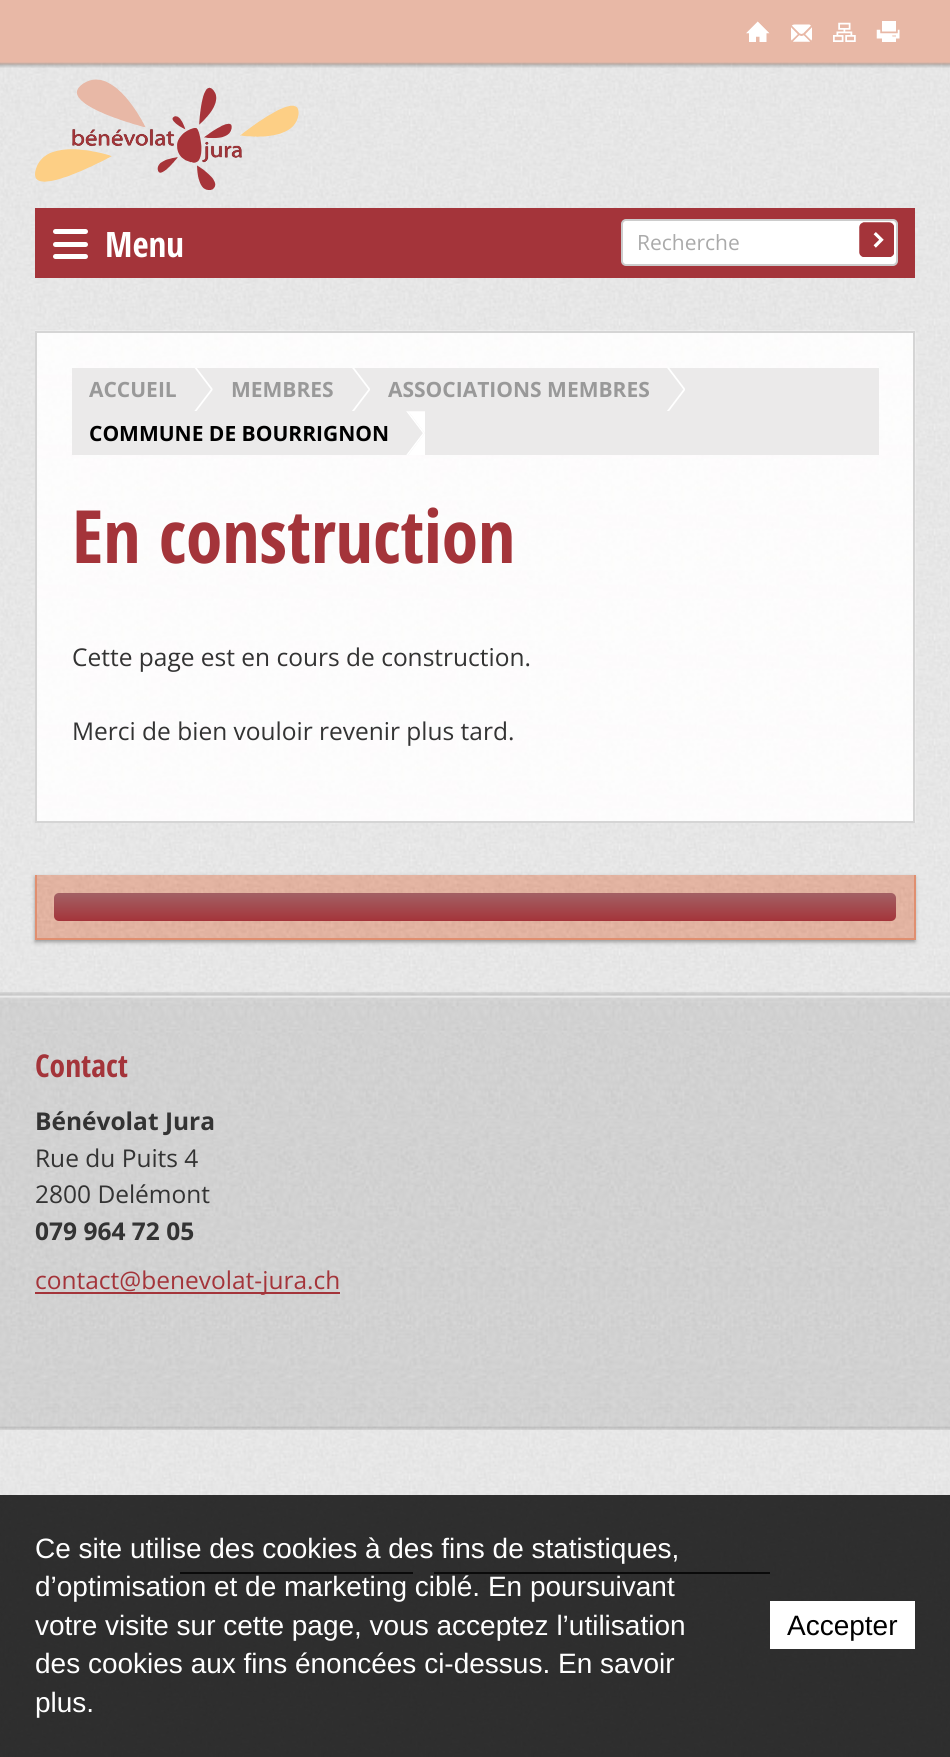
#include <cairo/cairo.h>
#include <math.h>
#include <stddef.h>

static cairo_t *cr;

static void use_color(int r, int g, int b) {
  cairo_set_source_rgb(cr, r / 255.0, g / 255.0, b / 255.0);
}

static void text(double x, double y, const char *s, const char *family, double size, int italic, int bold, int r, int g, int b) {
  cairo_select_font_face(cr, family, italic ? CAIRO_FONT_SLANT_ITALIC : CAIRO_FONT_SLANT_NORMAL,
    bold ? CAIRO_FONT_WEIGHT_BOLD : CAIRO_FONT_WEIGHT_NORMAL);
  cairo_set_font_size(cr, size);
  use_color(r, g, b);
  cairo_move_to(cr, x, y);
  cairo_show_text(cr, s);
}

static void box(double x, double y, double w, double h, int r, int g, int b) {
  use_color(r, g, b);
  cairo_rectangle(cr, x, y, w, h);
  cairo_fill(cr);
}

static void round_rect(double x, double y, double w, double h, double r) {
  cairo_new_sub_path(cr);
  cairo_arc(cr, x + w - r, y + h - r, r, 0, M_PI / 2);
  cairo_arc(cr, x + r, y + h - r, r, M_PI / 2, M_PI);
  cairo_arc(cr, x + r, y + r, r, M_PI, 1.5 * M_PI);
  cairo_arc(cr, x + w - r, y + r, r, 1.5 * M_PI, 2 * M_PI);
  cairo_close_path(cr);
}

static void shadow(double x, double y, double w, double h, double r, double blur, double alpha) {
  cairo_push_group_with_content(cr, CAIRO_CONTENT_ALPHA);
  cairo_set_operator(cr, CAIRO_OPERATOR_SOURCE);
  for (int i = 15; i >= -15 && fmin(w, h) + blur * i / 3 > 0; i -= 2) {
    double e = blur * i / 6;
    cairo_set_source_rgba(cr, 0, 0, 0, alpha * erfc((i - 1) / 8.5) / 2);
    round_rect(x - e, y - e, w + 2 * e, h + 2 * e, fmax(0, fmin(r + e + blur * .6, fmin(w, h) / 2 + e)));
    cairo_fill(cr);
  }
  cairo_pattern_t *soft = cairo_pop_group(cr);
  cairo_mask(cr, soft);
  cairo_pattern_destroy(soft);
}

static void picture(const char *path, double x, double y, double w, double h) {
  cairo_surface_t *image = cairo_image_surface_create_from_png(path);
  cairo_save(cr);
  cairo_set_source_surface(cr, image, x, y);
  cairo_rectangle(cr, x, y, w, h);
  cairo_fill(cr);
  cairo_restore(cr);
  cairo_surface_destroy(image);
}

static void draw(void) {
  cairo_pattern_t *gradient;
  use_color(255, 255, 255);
  cairo_paint(cr);
  picture("img_01.png", 0, 62, 950, 1695);
  picture("img_02.png", 0, 0, 950, 68);
  picture("img_03.png", 746, 21, 24, 21);
  picture("img_04.png", 791, 24, 21, 18);
  picture("img_05.png", 833, 22, 23, 20);
  picture("img_06.png", 876, 21, 24, 21);
  picture("img_07.png", 35, 79, 264, 111);
  box(35, 208, 880, 70, 164, 52, 58);
  use_color(255, 255, 255);
  round_rect(53, 242, 35, 5, 2.5);
  cairo_fill(cr);
  round_rect(53, 229, 35, 5, 2.5);
  cairo_fill(cr);
  round_rect(53, 254, 35, 5, 2.5);
  cairo_fill(cr);
  round_rect(622, 220, 275, 45, 4);
  cairo_fill_preserve(cr);
  use_color(204, 204, 204);
  cairo_stroke(cr);
  picture("img_08.png", 859, 222, 35, 35);
  picture("img_09.png", 35, 330, 881, 493);
  cairo_rectangle(cr, 36, 332, 878, 490);
  use_color(213, 213, 213);
  cairo_stroke(cr);
  box(72, 368, 807, 87, 235, 234, 234);
  picture("img_10.png", 194, 368, 19, 43);
  picture("img_11.png", 352, 368, 18, 43);
  picture("img_11.png", 667, 368, 18, 43);
  picture("img_12.png", 406, 411, 19, 44);
  use_color(153, 153, 153);
  shadow(35, 877, 880, 65, 0, 2, 1);
  picture("img_13.png", 37, 875, 877, 63);
  box(914, 875, 2, 65, 224, 143, 112);
  box(35, 938, 880, 2, 224, 143, 112);
  box(35, 875, 2, 65, 224, 143, 112);
  gradient = cairo_pattern_create_linear(54, 893, 54, 921);
  cairo_pattern_add_color_stop_rgba(gradient, 0.05, 0.639, 0.373, 0.388, 1);
  cairo_pattern_add_color_stop_rgba(gradient, 1, 0.643, 0.204, 0.227, 1);
  cairo_set_source(cr, gradient);
  cairo_pattern_destroy(gradient);
  round_rect(54, 893, 842, 28, 5);
  cairo_fill(cr);
  picture("img_15.png", 0, 1426, 950, 4);
  picture("img_14.png", 0, 992, 950, 435);
  box(35, 1292, 305, 2, 164, 52, 58);
  box(180, 1572, 233, 2, 51, 51, 51);
  box(434, 1572, 336, 2, 51, 51, 51);
  cairo_set_source_rgba(cr, 0, 0, 0, 0.8);
  cairo_rectangle(cr, 0, 1495, 950, 262);
  cairo_fill(cr);
  box(770, 1601, 145, 48, 255, 255, 255);
  text(105, 257, "Menu", "Open Sans Condensed", 35, 0, 1, 255, 255, 255);
  text(637, 250, "Recherche", "Open Sans", 21, 0, 0, 170, 170, 170);
  text(89, 397, "ACCUEIL", "Open Sans", 21, 0, 1, 153, 153, 153);
  text(231, 397, "MEMBRES", "Open Sans", 21, 0, 1, 153, 153, 153);
  text(388, 397, "ASSOCIATIONS MEMBRES", "Open Sans", 21, 0, 1, 153, 153, 153);
  text(89, 441, "COMMUNE DE BOURRIGNON", "Open Sans", 21, 0, 1, 0, 0, 0);
  text(72, 563, "En construction", "Open Sans Condensed", 73.5, 0, 1, 164, 52, 58);
  text(72, 666, "Cette page est en cours de construction.", "Open Sans", 24.5, 0, 0, 51, 51, 51);
  text(72, 740, "Merci de bien vouloir revenir plus tard.", "Open Sans", 24.5, 0, 0, 51, 51, 51);
  text(35, 1077, "Contact", "Open Sans Condensed", 31.5, 0, 1, 164, 52, 58);
  text(35, 1130, "Bénévolat Jura", "Open Sans", 24.5, 0, 1, 51, 51, 51);
  text(35, 1167, "Rue du Puits 4", "Open Sans", 24.5, 0, 0, 51, 51, 51);
  text(35, 1203, "2800 Delémont", "Open Sans", 24.5, 0, 0, 51, 51, 51);
  text(35, 1240, "079 964 72 05", "Open Sans", 24.5, 0, 1, 51, 51, 51);
  text(35, 1289, "contact@benevolat-jura.ch", "Open Sans", 24.5, 0, 0, 164, 52, 58);
  text(35, 1558, "Ce site utilise des cookies à des fins de statistiques,", "Liberation Sans", 28, 0, 0, 255, 255, 255);
  text(35, 1596, "d’optimisation et de marketing ciblé. En poursuivant", "Liberation Sans", 28, 0, 0, 255, 255, 255);
  text(35, 1635, "votre visite sur cette page, vous acceptez l’utilisation", "Liberation Sans", 28, 0, 0, 255, 255, 255);
  text(35, 1673, "des cookies aux fins énoncées ci-dessus. En savoir", "Liberation Sans", 28, 0, 0, 255, 255, 255);
  text(35, 1712, "plus.", "Liberation Sans", 28, 0, 0, 255, 255, 255);
  text(787, 1635, "Accepter", "Liberation Sans", 28, 0, 0, 0, 0, 0);
}

int main(void) {
  cairo_surface_t *surface = cairo_image_surface_create(CAIRO_FORMAT_RGB24, 950, 1757);
  cr = cairo_create(surface);
  cairo_font_options_t *options = cairo_font_options_create();
  cairo_font_options_set_hint_metrics(options, CAIRO_HINT_METRICS_OFF);
  cairo_font_options_set_hint_style(options, CAIRO_HINT_STYLE_NONE);
  cairo_set_font_options(cr, options);
  cairo_set_miter_limit(cr, 4);
  draw();
  cairo_surface_write_to_png(surface, "out.png");
  cairo_font_options_destroy(options);
  cairo_destroy(cr);
  cairo_surface_destroy(surface);
  return 0;
}
